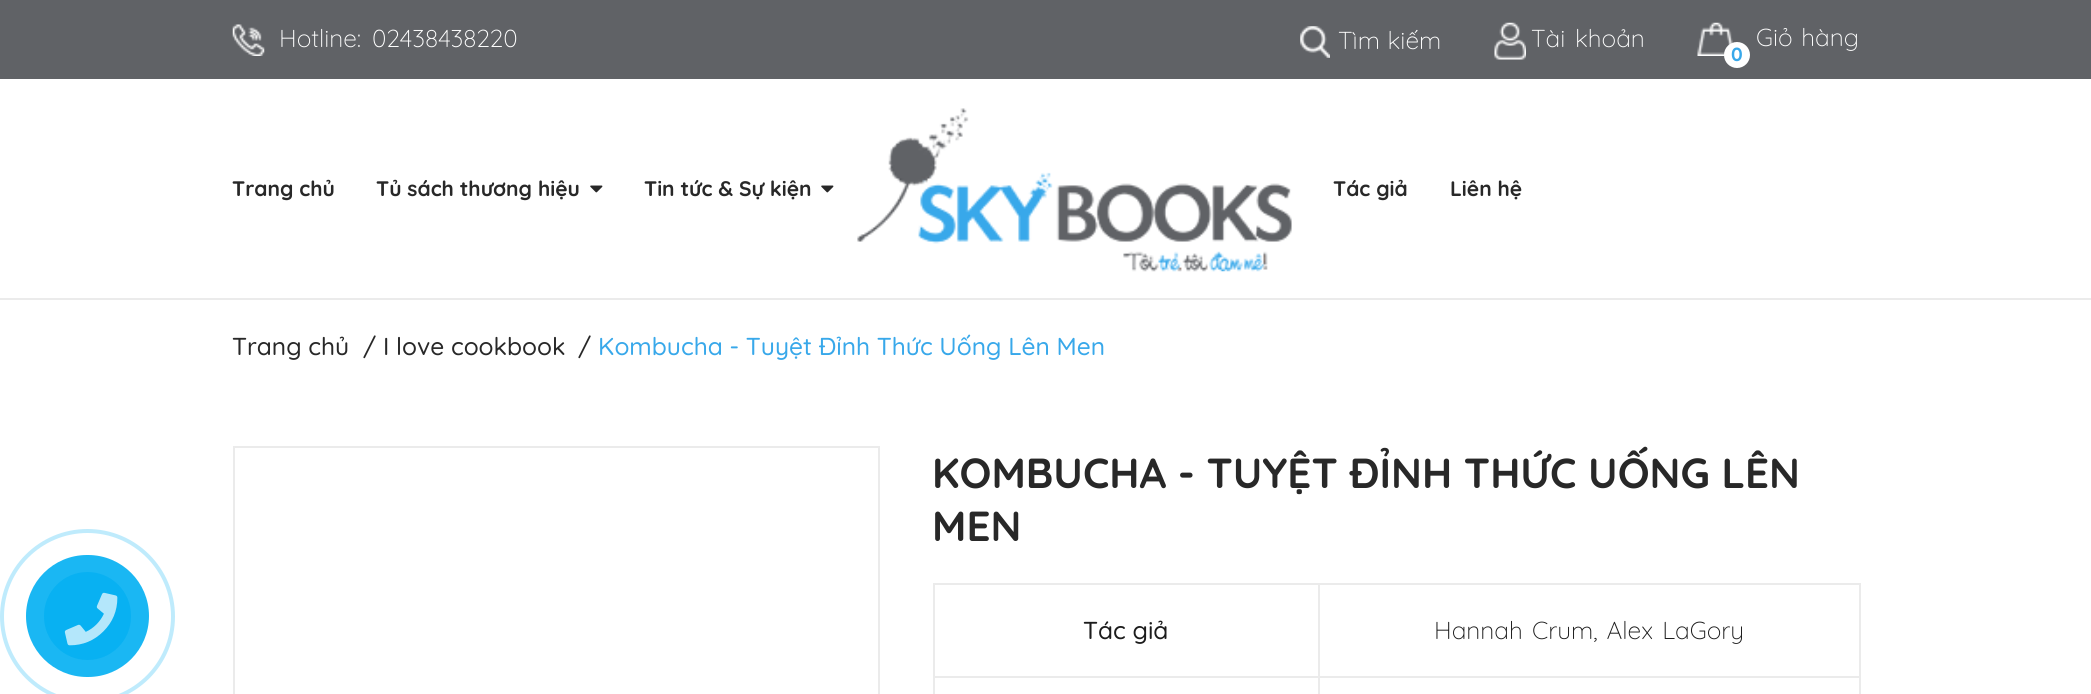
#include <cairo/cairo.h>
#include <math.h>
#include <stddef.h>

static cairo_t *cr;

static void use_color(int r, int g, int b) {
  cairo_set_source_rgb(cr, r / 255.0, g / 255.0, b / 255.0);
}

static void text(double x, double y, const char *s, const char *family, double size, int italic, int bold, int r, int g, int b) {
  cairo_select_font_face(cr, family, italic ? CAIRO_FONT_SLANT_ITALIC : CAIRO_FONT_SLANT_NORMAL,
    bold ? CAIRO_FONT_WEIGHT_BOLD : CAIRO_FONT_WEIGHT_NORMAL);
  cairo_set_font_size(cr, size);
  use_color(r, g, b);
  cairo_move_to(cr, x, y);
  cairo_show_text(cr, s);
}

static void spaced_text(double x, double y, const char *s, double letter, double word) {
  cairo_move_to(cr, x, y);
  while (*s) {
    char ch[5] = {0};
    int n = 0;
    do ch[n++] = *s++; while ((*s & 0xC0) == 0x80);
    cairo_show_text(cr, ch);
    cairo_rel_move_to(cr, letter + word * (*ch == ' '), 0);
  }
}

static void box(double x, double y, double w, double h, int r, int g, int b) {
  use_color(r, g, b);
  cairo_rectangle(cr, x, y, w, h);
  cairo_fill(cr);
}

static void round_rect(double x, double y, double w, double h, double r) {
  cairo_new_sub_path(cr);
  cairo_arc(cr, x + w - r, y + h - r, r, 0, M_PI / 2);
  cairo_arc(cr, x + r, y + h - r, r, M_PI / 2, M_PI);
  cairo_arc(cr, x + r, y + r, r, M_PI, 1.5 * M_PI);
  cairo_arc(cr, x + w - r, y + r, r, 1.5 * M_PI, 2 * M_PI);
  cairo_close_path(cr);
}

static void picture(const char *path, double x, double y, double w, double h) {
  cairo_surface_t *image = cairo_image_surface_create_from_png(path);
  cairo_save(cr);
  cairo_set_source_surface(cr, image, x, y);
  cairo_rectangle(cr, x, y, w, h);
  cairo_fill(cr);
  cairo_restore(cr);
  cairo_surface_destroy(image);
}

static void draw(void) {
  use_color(255, 255, 255);
  cairo_paint(cr);
  box(0, 0, 2091, 79, 96, 98, 102);
  picture("img_01.png", 232, 24, 33, 32);
  picture("img_02.png", 1300, 26, 30, 32);
  picture("img_03.png", 1494, 22, 32, 38);
  picture("img_04.png", 1697, 22, 36, 34);
  use_color(255, 255, 255);
  cairo_arc(cr, 1737, 55, 13, 0, 2 * M_PI);
  cairo_fill(cr);
  picture("img_05.png", 590, 185, 13, 8);
  picture("img_05.png", 821, 185, 13, 8);
  picture("img_06.png", 857, 108, 435, 164);
  cairo_arc(cr, 87.5, 616.5, 85.5, 0, 2 * M_PI);
  use_color(191, 235, 252);
  cairo_set_line_width(cr, 4);
  cairo_stroke(cr);
  use_color(26, 183, 243);
  round_rect(26, 555, 123, 122, 61);
  cairo_fill(cr);
  use_color(8, 177, 242);
  round_rect(44, 572, 87, 88, 43.5);
  cairo_fill(cr);
  picture("img_07.png", 64, 592, 54, 54);
  box(0, 298, 2091, 2, 235, 235, 235);
  cairo_rectangle(cr, 234, 447, 645, 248);
  cairo_set_line_width(cr, 2);
  cairo_stroke(cr);
  box(1318, 583, 542, 2, 235, 235, 235);
  box(1318, 676, 542, 2, 235, 235, 235);
  box(1318, 676, 2, 18, 235, 235, 235);
  box(933, 676, 387, 2, 235, 235, 235);
  box(1318, 583, 2, 94, 235, 235, 235);
  box(933, 583, 387, 2, 235, 235, 235);
  box(933, 676, 2, 18, 235, 235, 235);
  box(933, 583, 2, 94, 235, 235, 235);
  box(1859, 676, 2, 18, 235, 235, 235);
  box(1859, 583, 2, 94, 235, 235, 235);
  text(279, 47, "Hotline:", "Quicksand Light", 24.5, 0, 0, 255, 255, 255);
  text(372, 47, "02438438220", "Quicksand Light", 24.5, 0, 0, 255, 255, 255);
  spaced_text(1338, 49, "Tìm kiếm", 0, 1);
  spaced_text(1531, 47, "Tài khoản", 0, 3);
  spaced_text(1756, 46, "Giỏ hàng", 0, 2);
  text(1731, 61, "0", "Quicksand", 19, 0, 1, 56, 168, 234);
  text(232, 196, "Trang chủ", "Quicksand", 21, 0, 1, 40, 40, 40);
  text(376, 196, "Tủ sách thương hiệu", "Quicksand", 21, 0, 1, 40, 40, 40);
  text(644, 196, "Tin tức & Sự kiện", "Quicksand", 21, 0, 1, 40, 40, 40);
  text(1333, 196, "Tác giả", "Quicksand", 21, 0, 1, 40, 40, 40);
  text(1450, 196, "Liên hệ", "Quicksand", 21, 0, 1, 40, 40, 40);
  text(232, 355, "Trang chủ", "Quicksand Medium", 24.5, 0, 0, 40, 40, 40);
  text(363, 355, "/ I love cookbook", "Quicksand Medium", 24.5, 0, 0, 40, 40, 40);
  text(578, 355, "/", "Quicksand Medium", 24.5, 0, 0, 40, 40, 40);
  text(598, 355, "Kombucha - Tuyệt Đỉnh Thức Uống Lên Men", "Quicksand Medium", 24.5, 0, 0, 56, 168, 234);
  text(932, 488, "KOMBUCHA - TUYỆT ĐỈNH THỨC UỐNG LÊN", "Quicksand", 42, 0, 1, 40, 40, 40);
  text(932, 541, "MEN", "Quicksand", 42, 0, 1, 40, 40, 40);
  text(1083, 639, "Tác giả", "Quicksand Medium", 24.5, 0, 0, 28, 28, 28);
  cairo_select_font_face(cr, "Quicksand Light", CAIRO_FONT_SLANT_NORMAL, CAIRO_FONT_WEIGHT_NORMAL);
  spaced_text(1434, 639, "Hannah Crum, Alex LaGory", 0, 2.5);
}

int main(void) {
  cairo_surface_t *surface = cairo_image_surface_create(CAIRO_FORMAT_RGB24, 2091, 694);
  cr = cairo_create(surface);
  cairo_font_options_t *options = cairo_font_options_create();
  cairo_font_options_set_hint_metrics(options, CAIRO_HINT_METRICS_OFF);
  cairo_font_options_set_hint_style(options, CAIRO_HINT_STYLE_NONE);
  cairo_set_font_options(cr, options);
  cairo_set_miter_limit(cr, 4);
  draw();
  cairo_surface_write_to_png(surface, "out.png");
  cairo_font_options_destroy(options);
  cairo_destroy(cr);
  cairo_surface_destroy(surface);
  return 0;
}
